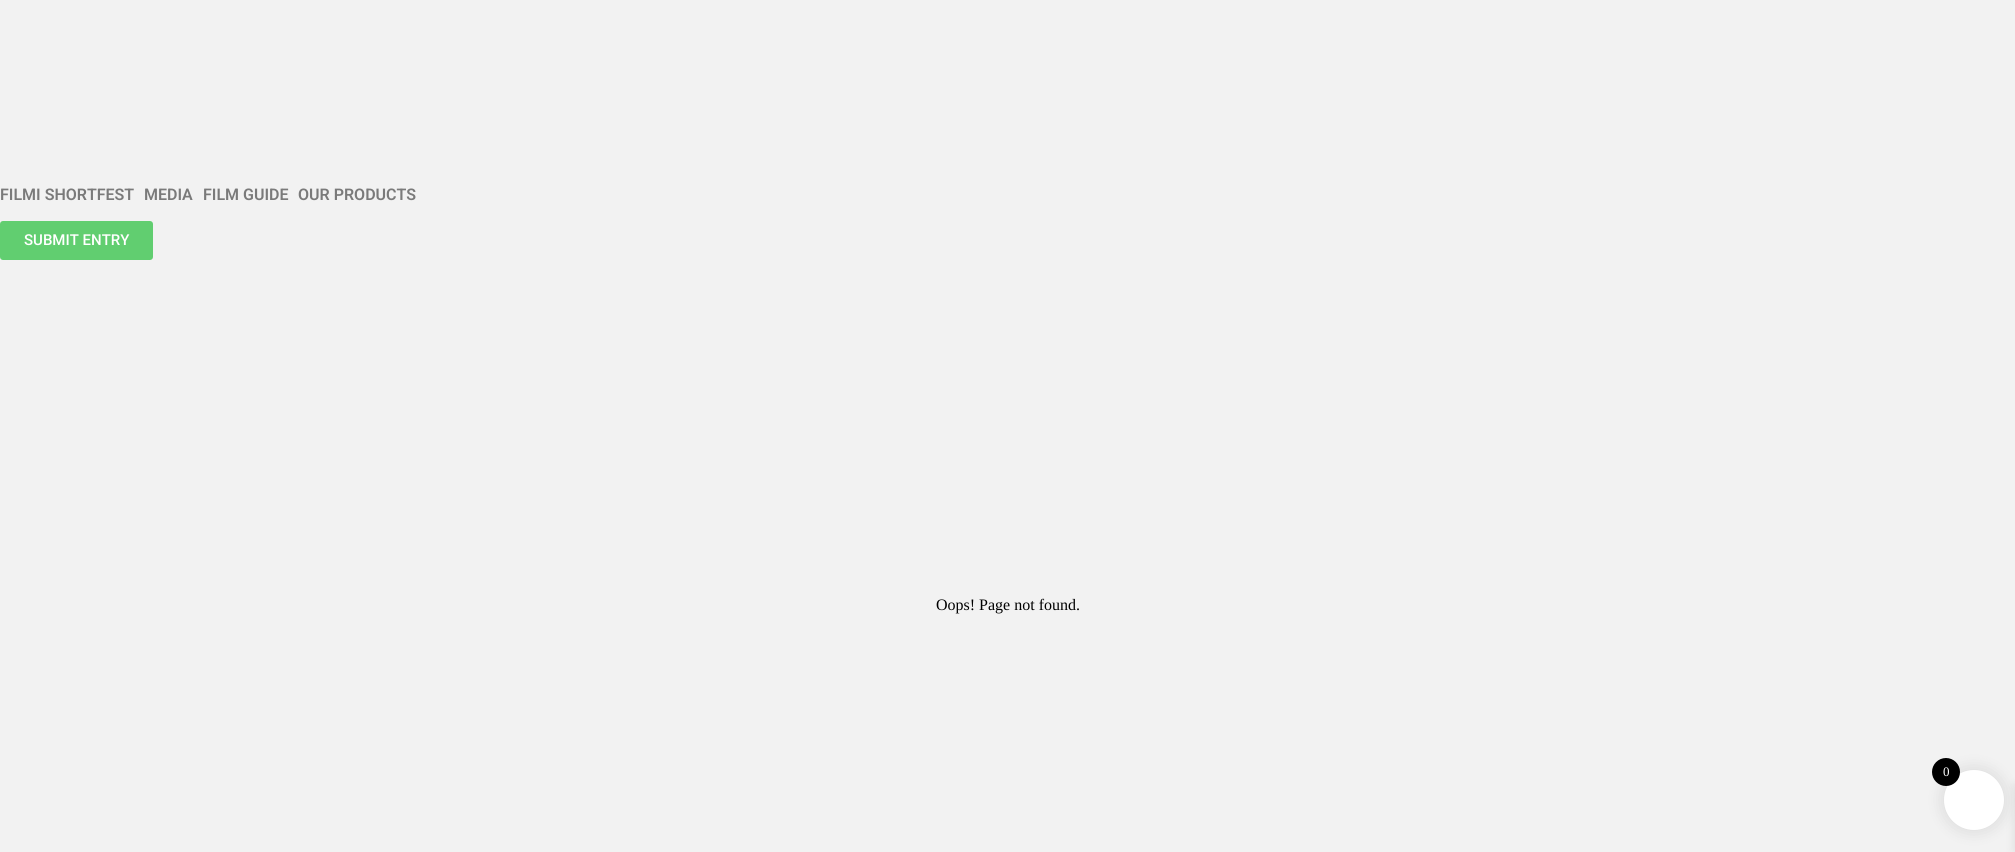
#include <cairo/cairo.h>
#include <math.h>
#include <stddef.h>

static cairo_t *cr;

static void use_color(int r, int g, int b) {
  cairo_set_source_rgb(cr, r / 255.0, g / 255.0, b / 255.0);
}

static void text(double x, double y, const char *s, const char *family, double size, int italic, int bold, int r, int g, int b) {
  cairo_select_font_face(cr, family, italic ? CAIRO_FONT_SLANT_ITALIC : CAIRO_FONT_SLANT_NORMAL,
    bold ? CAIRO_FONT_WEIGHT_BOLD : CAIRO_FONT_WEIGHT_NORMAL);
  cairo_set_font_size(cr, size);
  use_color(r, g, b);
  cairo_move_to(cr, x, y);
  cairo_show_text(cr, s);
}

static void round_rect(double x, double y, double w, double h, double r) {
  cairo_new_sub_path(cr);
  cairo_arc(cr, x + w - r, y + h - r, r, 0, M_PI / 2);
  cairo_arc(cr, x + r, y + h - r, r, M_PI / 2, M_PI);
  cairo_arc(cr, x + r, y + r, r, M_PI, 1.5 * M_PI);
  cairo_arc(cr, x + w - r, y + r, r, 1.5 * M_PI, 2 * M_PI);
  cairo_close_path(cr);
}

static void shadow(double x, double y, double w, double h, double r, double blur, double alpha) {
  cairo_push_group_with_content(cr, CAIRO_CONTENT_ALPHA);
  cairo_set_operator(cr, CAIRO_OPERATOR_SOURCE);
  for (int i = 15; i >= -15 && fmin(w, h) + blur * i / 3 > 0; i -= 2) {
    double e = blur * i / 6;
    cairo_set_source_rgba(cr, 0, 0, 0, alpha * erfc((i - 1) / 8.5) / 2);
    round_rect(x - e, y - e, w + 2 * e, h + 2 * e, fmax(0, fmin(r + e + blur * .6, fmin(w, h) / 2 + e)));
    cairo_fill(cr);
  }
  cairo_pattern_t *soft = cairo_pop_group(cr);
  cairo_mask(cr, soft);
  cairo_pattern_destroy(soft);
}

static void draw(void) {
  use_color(242, 242, 242);
  cairo_paint(cr);
  use_color(97, 206, 112);
  round_rect(0, 221, 153, 39, 3);
  cairo_fill(cr);
  use_color(0, 0, 0);
  shadow(1942, 768, 64, 64, 32, 7.5, 0.1);
  shadow(2015, 786, 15, 65, 0, 5, 0.1);
  use_color(255, 255, 255);
  cairo_arc(cr, 1974, 800, 30, 0, 2 * M_PI);
  cairo_fill(cr);
  use_color(0, 0, 0);
  cairo_arc(cr, 1946, 772, 14, 0, 2 * M_PI);
  cairo_fill(cr);
  text(0, 200, "FILMI SHORTFEST", "Roboto SemiBold", 16, 0, 0, 122, 122, 122);
  text(144, 200, "MEDIA", "Roboto SemiBold", 16, 0, 0, 122, 122, 122);
  text(203, 200, "FILM GUIDE", "Roboto SemiBold", 16, 0, 0, 122, 122, 122);
  text(298, 200, "OUR PRODUCTS", "Roboto SemiBold", 16, 0, 0, 122, 122, 122);
  text(24, 245, "SUBMIT ENTRY", "Roboto Medium", 15, 0, 0, 255, 255, 255);
  text(936, 610, "Oops! Page not found.", "Liberation Serif", 16, 0, 0, 0, 0, 0);
  text(1943, 776, "0", "Liberation Serif", 13, 0, 0, 255, 255, 255);
}

int main(void) {
  cairo_surface_t *surface = cairo_image_surface_create(CAIRO_FORMAT_RGB24, 2015, 852);
  cr = cairo_create(surface);
  cairo_font_options_t *options = cairo_font_options_create();
  cairo_font_options_set_hint_metrics(options, CAIRO_HINT_METRICS_OFF);
  cairo_font_options_set_hint_style(options, CAIRO_HINT_STYLE_NONE);
  cairo_set_font_options(cr, options);
  cairo_set_miter_limit(cr, 4);
  draw();
  cairo_surface_write_to_png(surface, "out.png");
  cairo_font_options_destroy(options);
  cairo_destroy(cr);
  cairo_surface_destroy(surface);
  return 0;
}
